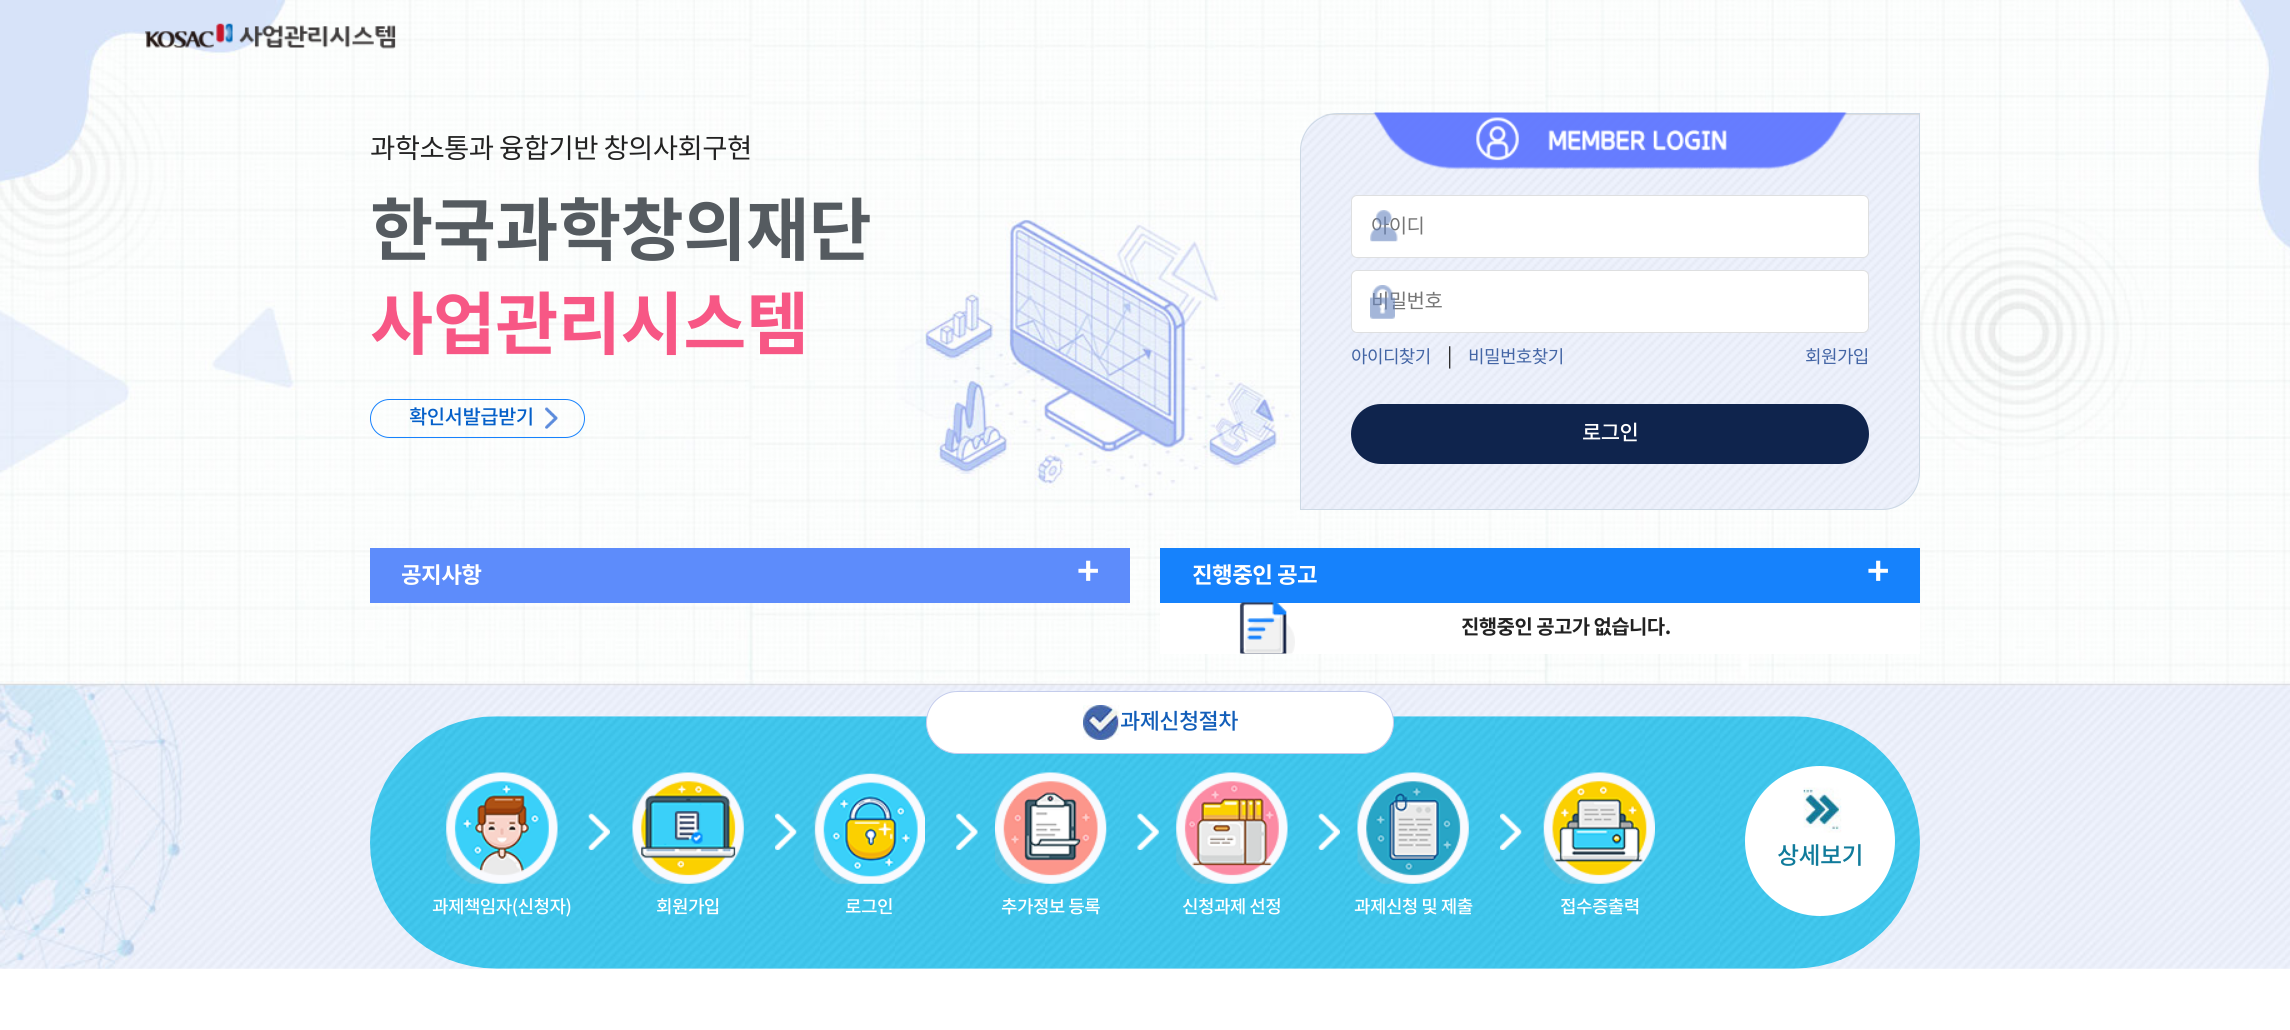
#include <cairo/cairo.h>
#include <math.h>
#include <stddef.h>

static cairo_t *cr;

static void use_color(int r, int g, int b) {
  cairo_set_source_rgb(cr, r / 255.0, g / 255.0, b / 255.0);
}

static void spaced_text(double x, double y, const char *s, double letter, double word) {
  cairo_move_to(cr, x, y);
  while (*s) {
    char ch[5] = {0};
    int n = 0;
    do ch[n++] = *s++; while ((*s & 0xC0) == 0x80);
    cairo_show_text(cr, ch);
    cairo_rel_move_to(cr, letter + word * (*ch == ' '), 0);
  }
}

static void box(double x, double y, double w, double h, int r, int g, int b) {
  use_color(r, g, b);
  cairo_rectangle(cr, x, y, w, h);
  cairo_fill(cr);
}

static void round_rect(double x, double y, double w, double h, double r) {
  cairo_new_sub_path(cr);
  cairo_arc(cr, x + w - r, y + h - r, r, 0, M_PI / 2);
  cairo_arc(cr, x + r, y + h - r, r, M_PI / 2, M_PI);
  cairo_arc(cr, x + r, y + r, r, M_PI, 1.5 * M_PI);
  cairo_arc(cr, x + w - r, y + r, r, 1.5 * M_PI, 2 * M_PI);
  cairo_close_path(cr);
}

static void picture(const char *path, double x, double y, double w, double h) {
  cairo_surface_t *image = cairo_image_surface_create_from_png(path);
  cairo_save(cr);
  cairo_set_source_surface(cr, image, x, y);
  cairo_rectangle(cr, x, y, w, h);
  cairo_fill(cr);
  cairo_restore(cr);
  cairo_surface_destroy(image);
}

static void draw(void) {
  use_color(255, 255, 255);
  cairo_paint(cr);
  picture("img_01.png", 0, 0, 2290, 969);
  picture("img_02.png", 145, 23, 251, 26);
  picture("img_03.png", 545, 407, 13, 22);
  round_rect(370.5, 399.5, 214, 38, 19);
  use_color(23, 130, 253);
  cairo_set_line_width(cr, 1);
  cairo_stroke(cr);
  picture("img_04.png", 1300, 113, 620, 397);
  cairo_new_path(cr);
  cairo_move_to(cr, 1338, 113.5);
  cairo_line_to(cr, 1919.5, 113.5);
  cairo_line_to(cr, 1919.5, 472);
  cairo_curve_to(cr, 1919.5, 492.5, 1902.5, 509.5, 1882, 509.5);
  cairo_line_to(cr, 1300.5, 509.5);
  cairo_line_to(cr, 1300.5, 151);
  cairo_curve_to(cr, 1300.5, 130.5, 1317.5, 113.5, 1338, 113.5);
  cairo_close_path(cr);
  use_color(204, 216, 228);
  cairo_stroke(cr);
  picture("img_05.png", 1373, 112, 475, 58);
  use_color(255, 255, 255);
  round_rect(1351.5, 195.5, 517, 62, 5.5);
  cairo_fill_preserve(cr);
  use_color(222, 223, 224);
  cairo_stroke(cr);
  use_color(255, 255, 255);
  round_rect(1351.5, 270.5, 517, 62, 5.5);
  cairo_fill_preserve(cr);
  use_color(222, 223, 224);
  cairo_stroke(cr);
  use_color(15, 36, 77);
  round_rect(1351, 404, 518, 60, 30);
  cairo_fill(cr);
  box(370, 548, 760, 55, 93, 140, 251);
  box(1160, 603, 760, 51, 255, 255, 255);
  box(1160, 548, 760, 55, 22, 130, 252);
  picture("img_08.png", 1239, 602, 56, 52);
  picture("img_10.png", 370, 716, 1550, 253);
  use_color(255, 255, 255);
  round_rect(926.5, 691.5, 467, 62, 31);
  cairo_fill_preserve(cr);
  use_color(196, 204, 236);
  cairo_stroke(cr);
  picture("img_09.png", 1083, 705, 37, 35);
  use_color(255, 255, 255);
  cairo_arc(cr, 1820, 841, 75, 0, 2 * M_PI);
  cairo_fill(cr);
  picture("img_11.png", 1803, 787, 39, 46);
  picture("img_12.png", 446, 772, 112, 112);
  picture("img_13.png", 588, 813, 22, 37);
  picture("img_14.png", 632, 772, 112, 112);
  picture("img_15.png", 775, 813, 22, 37);
  picture("img_16.png", 813, 773, 112, 111);
  picture("img_17.png", 956, 813, 22, 37);
  picture("img_18.png", 995, 772, 112, 112);
  picture("img_19.png", 1137, 813, 22, 37);
  picture("img_20.png", 1176, 772, 112, 112);
  picture("img_21.png", 1318, 813, 22, 37);
  picture("img_22.png", 1357, 772, 112, 112);
  picture("img_23.png", 1500, 813, 22, 37);
  picture("img_24.png", 1543, 772, 112, 112);
  cairo_select_font_face(cr, "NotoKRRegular", CAIRO_FONT_SLANT_NORMAL, CAIRO_FONT_WEIGHT_NORMAL);
  cairo_set_font_size(cr, 27.5);
  use_color(34, 34, 34);
  spaced_text(370, 158, "과학소통과 융합기반 창의사회구현", -0.6, 0);
  cairo_select_font_face(cr, "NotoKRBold", CAIRO_FONT_SLANT_NORMAL, CAIRO_FONT_WEIGHT_BOLD);
  cairo_set_font_size(cr, 68.75);
  use_color(85, 91, 96);
  spaced_text(370, 255, "한국과학창의재단", -0.6, 0);
  use_color(247, 87, 133);
  spaced_text(370, 349, "사업관리시스템", -0.6, 0);
  cairo_select_font_face(cr, "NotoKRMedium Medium", CAIRO_FONT_SLANT_NORMAL, CAIRO_FONT_WEIGHT_NORMAL);
  cairo_set_font_size(cr, 20);
  use_color(5, 96, 201);
  spaced_text(409, 424, "확인서발급받기", -0.6, 0);
  cairo_select_font_face(cr, "NotoKRRegular", CAIRO_FONT_SLANT_NORMAL, CAIRO_FONT_WEIGHT_NORMAL);
  use_color(117, 117, 117);
  spaced_text(1371, 233, "아이디", -0.6, 0);
  picture("img_06.png", 1370, 210, 28, 32);
  spaced_text(1371, 308, "비밀번호", -0.6, 0);
  picture("img_07.png", 1370, 285, 25, 34);
  cairo_set_font_size(cr, 18);
  use_color(67, 101, 165);
  spaced_text(1351, 363, "아이디찾기", -0.6, 0);
  cairo_set_font_size(cr, 20);
  use_color(34, 34, 34);
  spaced_text(1447, 363, "|", -0.6, 0);
  cairo_set_font_size(cr, 18);
  use_color(67, 101, 165);
  spaced_text(1468, 363, "비밀번호찾기", -0.6, 0);
  spaced_text(1805, 363, "회원가입", -0.6, 0);
  cairo_select_font_face(cr, "NotoKRMedium Medium", CAIRO_FONT_SLANT_NORMAL, CAIRO_FONT_WEIGHT_NORMAL);
  cairo_set_font_size(cr, 21);
  use_color(255, 255, 255);
  spaced_text(1582, 440, "로그인", -0.6, 0);
  cairo_select_font_face(cr, "NotoKRBold", CAIRO_FONT_SLANT_NORMAL, CAIRO_FONT_WEIGHT_BOLD);
  cairo_set_font_size(cr, 22.5);
  spaced_text(401, 583, "공지사항", -0.6, 0);
  cairo_set_font_size(cr, 38);
  spaced_text(1077, 585, "+", -0.6, 0);
  cairo_set_font_size(cr, 22.5);
  spaced_text(1192, 583, "진행중인 공고", -0.6, 0);
  cairo_set_font_size(cr, 38);
  spaced_text(1867, 585, "+", -0.6, 0);
  cairo_set_font_size(cr, 20);
  use_color(34, 34, 34);
  spaced_text(1461, 634, "진행중인 공고가 없습니다.", -0.6, 0);
  cairo_select_font_face(cr, "NotoKRMedium Medium", CAIRO_FONT_SLANT_NORMAL, CAIRO_FONT_WEIGHT_NORMAL);
  cairo_set_font_size(cr, 22);
  use_color(18, 94, 185);
  spaced_text(1120, 729, "과제신청절차", -0.6, 0);
  cairo_set_font_size(cr, 24);
  use_color(16, 123, 155);
  spaced_text(1777, 864, "상세보기", -0.6, 0);
  cairo_set_font_size(cr, 18);
  use_color(255, 255, 255);
  spaced_text(432, 913, "과제책임자(신청자)", -0.6, 0);
  spaced_text(656, 913, "회원가입", -0.6, 0);
  spaced_text(845, 913, "로그인", -0.6, 0);
  spaced_text(1001, 913, "추가정보 등록", -0.6, 0);
  spaced_text(1182, 913, "신청과제 선정", -0.6, 0);
  spaced_text(1354, 913, "과제신청 및 제출", -0.6, 0);
  spaced_text(1560, 913, "접수증출력", -0.6, 0);
}

int main(void) {
  cairo_surface_t *surface = cairo_image_surface_create(CAIRO_FORMAT_RGB24, 2290, 1030);
  cr = cairo_create(surface);
  cairo_font_options_t *options = cairo_font_options_create();
  cairo_font_options_set_hint_metrics(options, CAIRO_HINT_METRICS_OFF);
  cairo_font_options_set_hint_style(options, CAIRO_HINT_STYLE_NONE);
  cairo_set_font_options(cr, options);
  cairo_set_miter_limit(cr, 4);
  draw();
  cairo_surface_write_to_png(surface, "out.png");
  cairo_font_options_destroy(options);
  cairo_destroy(cr);
  cairo_surface_destroy(surface);
  return 0;
}
